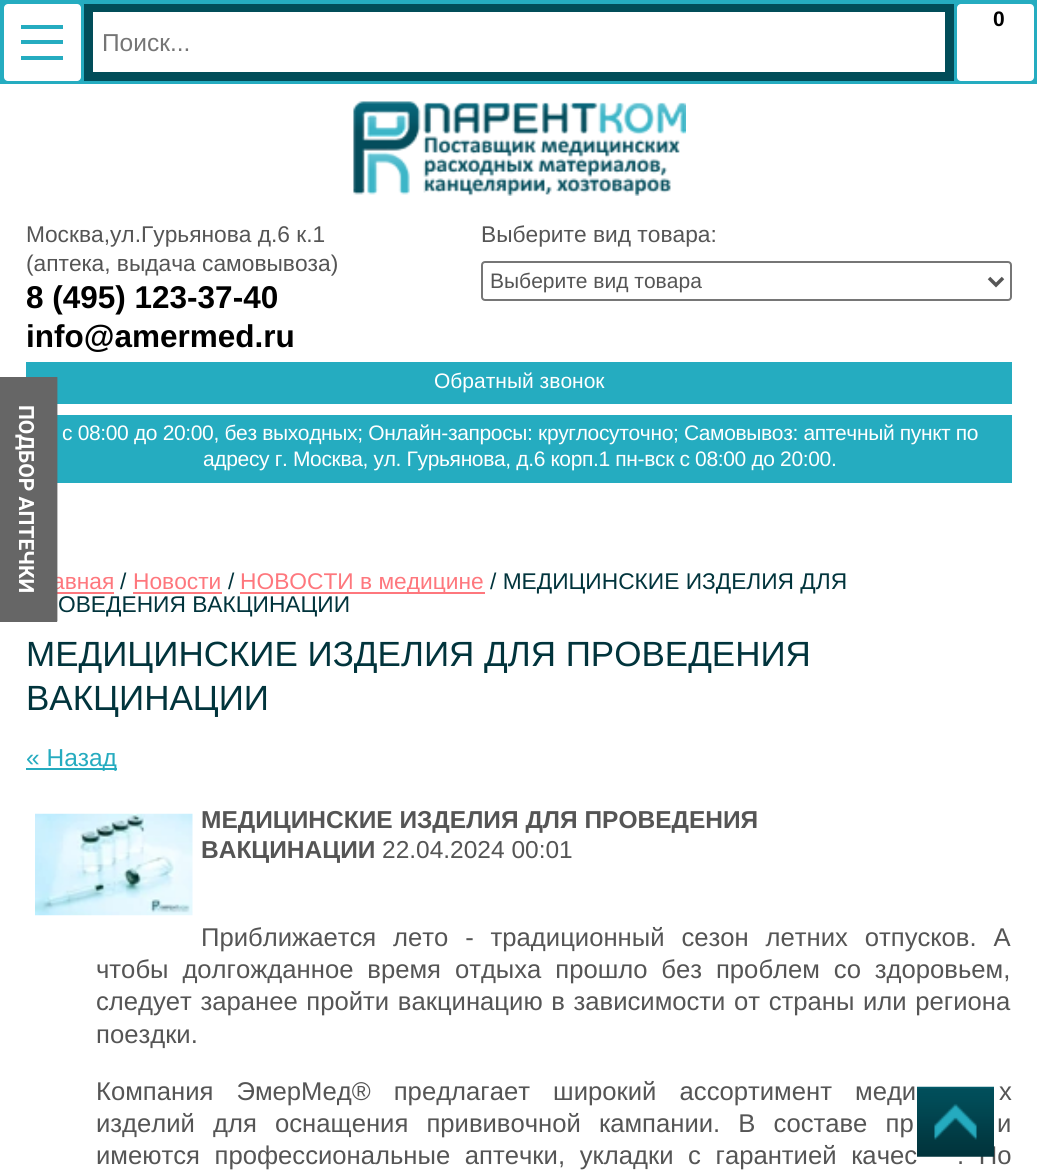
#include <cairo/cairo.h>
#include <math.h>
#include <stddef.h>

static cairo_t *cr;

static void use_color(int r, int g, int b) {
  cairo_set_source_rgb(cr, r / 255.0, g / 255.0, b / 255.0);
}

static void text(double x, double y, const char *s, const char *family, double size, int italic, int bold, int r, int g, int b) {
  cairo_select_font_face(cr, family, italic ? CAIRO_FONT_SLANT_ITALIC : CAIRO_FONT_SLANT_NORMAL,
    bold ? CAIRO_FONT_WEIGHT_BOLD : CAIRO_FONT_WEIGHT_NORMAL);
  cairo_set_font_size(cr, size);
  use_color(r, g, b);
  cairo_move_to(cr, x, y);
  cairo_show_text(cr, s);
}

static void spaced_text(double x, double y, const char *s, double letter, double word) {
  cairo_move_to(cr, x, y);
  while (*s) {
    char ch[5] = {0};
    int n = 0;
    do ch[n++] = *s++; while ((*s & 0xC0) == 0x80);
    cairo_show_text(cr, ch);
    cairo_rel_move_to(cr, letter + word * (*ch == ' '), 0);
  }
}

static void box(double x, double y, double w, double h, int r, int g, int b) {
  use_color(r, g, b);
  cairo_rectangle(cr, x, y, w, h);
  cairo_fill(cr);
}

static void round_rect(double x, double y, double w, double h, double r) {
  cairo_new_sub_path(cr);
  cairo_arc(cr, x + w - r, y + h - r, r, 0, M_PI / 2);
  cairo_arc(cr, x + r, y + h - r, r, M_PI / 2, M_PI);
  cairo_arc(cr, x + r, y + r, r, M_PI, 1.5 * M_PI);
  cairo_arc(cr, x + w - r, y + r, r, 1.5 * M_PI, 2 * M_PI);
  cairo_close_path(cr);
}

static void picture(const char *path, double x, double y, double w, double h) {
  cairo_surface_t *image = cairo_image_surface_create_from_png(path);
  cairo_save(cr);
  cairo_set_source_surface(cr, image, x, y);
  cairo_rectangle(cr, x, y, w, h);
  cairo_fill(cr);
  cairo_restore(cr);
  cairo_surface_destroy(image);
}

static void draw(void) {
  use_color(255, 255, 255);
  cairo_paint(cr);
  box(0, 0, 1037, 84, 37, 172, 192);
  use_color(255, 255, 255);
  round_rect(4, 4, 77, 77, 4);
  cairo_fill(cr);
  box(21, 25, 42, 4, 37, 172, 192);
  box(21, 56, 42, 4, 37, 172, 192);
  box(21, 40, 42, 4, 37, 172, 192);
  use_color(255, 255, 255);
  round_rect(957, 4, 77, 77, 4);
  cairo_fill(cr);
  box(84, 4, 870, 77, 1, 77, 89);
  box(93, 12, 852, 60, 255, 255, 255);
  picture("img_01.png", 353, 101, 333, 95);
  round_rect(482, 262, 529, 38, 3);
  use_color(118, 118, 118);
  cairo_stroke(cr);
  cairo_new_path(cr);
  cairo_move_to(cr, 989, 278);
  cairo_line_to(cr, 996, 285);
  cairo_line_to(cr, 1003, 278);
  use_color(86, 86, 86);
  cairo_set_line_width(cr, 3.5);
  cairo_stroke(cr);
  box(26, 362, 986, 42, 37, 172, 192);
  box(57, 415, 955, 68, 37, 172, 192);
  box(57, 592, 57, 2, 254, 119, 125);
  box(133, 592, 89, 2, 254, 119, 125);
  box(240, 592, 245, 2, 254, 119, 125);
  box(26, 768, 91, 2, 37, 171, 191);
  picture("img_02.png", 35, 813, 158, 103);
  text(993, 26, "0", "Liberation Sans", 21, 0, 1, 0, 0, 0);
  text(102, 51, "Поиск...", "Liberation Sans", 24.5, 0, 0, 117, 117, 117);
  text(26, 242, "Москва,ул.Гурьянова д.6 к.1", "Liberation Sans", 22.75, 0, 0, 85, 85, 85);
  text(26, 271, "(аптека, выдача самовывоза)", "Liberation Sans", 22.75, 0, 0, 85, 85, 85);
  text(26, 308, "8 (495) 123-37-40", "Liberation Sans", 31.5, 0, 1, 0, 0, 0);
  text(26, 347, "info@amermed.ru", "Liberation Sans", 31.5, 0, 1, 0, 0, 0);
  text(481, 242, "Выберите вид товара:", "Liberation Sans", 22.75, 0, 0, 85, 85, 85);
  text(490, 288, "Выберите вид товара", "Liberation Sans", 21, 0, 0, 85, 85, 85);
  text(434, 388, "Обратный звонок", "Liberation Sans", 21, 0, 0, 255, 255, 255);
  spaced_text(62, 440, "с 08:00 до 20:00, без выходных; Онлайн-запросы: круглосуточно; Самовывоз: аптечный пункт по", -0.35, 0);
  spaced_text(203, 466, "адресу г. Москва, ул. Гурьянова, д.6 корп.1 пн-вск с 08:00 до 20:00.", -0.35, 0);
  text(52, 589, "авная", "Liberation Sans", 22.75, 0, 0, 254, 119, 125);
  box(0, 377, 57, 245, 102, 102, 102);
  cairo_new_path(cr);
  cairo_move_to(cr, 56.5, 378);
  cairo_line_to(cr, 56.5, 620.5);
  cairo_line_to(cr, -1.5, 620.5);
  cairo_line_to(cr, -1.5, 378);
  cairo_close_path(cr);
  cairo_set_line_width(cr, 1.8);
  cairo_stroke(cr);
  cairo_save(cr);
  cairo_translate(cr, 19, 405);
  cairo_rotate(cr, 90 * M_PI / 180);
  text(0, 0, "ПОДБОР АПТЕЧКИ", "Roboto", 21, 0, 1, 255, 255, 255);
  cairo_restore(cr);
  text(120, 589, "/", "Liberation Sans", 22.75, 0, 0, 1, 52, 60);
  text(133, 589, "Новости", "Liberation Sans", 22.75, 0, 0, 254, 119, 125);
  text(228, 589, "/", "Liberation Sans", 22.75, 0, 0, 1, 52, 60);
  text(240, 589, "НОВОСТИ в медицине", "Liberation Sans", 22.75, 0, 0, 254, 119, 125);
  text(490, 589, "/ МЕДИЦИНСКИЕ ИЗДЕЛИЯ ДЛЯ", "Liberation Sans", 22.75, 0, 0, 1, 52, 60);
  text(58, 612, "ОВЕДЕНИЯ ВАКЦИНАЦИИ", "Liberation Sans", 22.75, 0, 0, 1, 52, 60);
  text(26, 666, "МЕДИЦИНСКИЕ ИЗДЕЛИЯ ДЛЯ ПРОВЕДЕНИЯ", "Liberation Sans", 35, 0, 0, 1, 52, 60);
  text(26, 710, "ВАКЦИНАЦИИ", "Liberation Sans", 35, 0, 0, 1, 52, 60);
  text(26, 766, "« Назад", "Liberation Sans", 24.5, 0, 0, 37, 171, 191);
  text(201, 828, "МЕДИЦИНСКИЕ ИЗДЕЛИЯ ДЛЯ ПРОВЕДЕНИЯ", "Liberation Sans", 24.5, 0, 1, 85, 85, 85);
  text(201, 858, "ВАКЦИНАЦИИ", "Liberation Sans", 24.5, 0, 1, 85, 85, 85);
  text(382, 858, "22.04.2024 00:01", "Liberation Sans", 24.5, 0, 0, 85, 85, 85);
  cairo_set_font_size(cr, 25.65);
  spaced_text(201, 946, "Приближается лето - традиционный сезон летних отпусков. А", 0, 9.75);
  spaced_text(96, 978, "чтобы долгожданное время отдыха прошло без проблем со здоровьем,", 0, 6.75);
  spaced_text(96, 1010, "следует заранее пройти вакцинацию в зависимости от страны или региона", 0, 1.5);
  text(96, 1043, "поездки.", "Liberation Sans", 25.65, 0, 0, 85, 85, 85);
  spaced_text(96, 1100, "Компания ЭмерМед® предлагает широкий ассортимент меди", 0, 16);
  spaced_text(999, 1100, "х", 0, 16);
  spaced_text(96, 1132, "изделий для оснащения прививочной кампании. В составе пр", 0, 11);
  spaced_text(997, 1132, "и", 0, 11);
  spaced_text(96, 1164, "имеются профессиональные аптечки, укладки с гарантией качес", 0, 7.5);
  spaced_text(957, 1164, ". По", 0, 7.5);
  picture("img_03.png", 917, 1086, 77, 71);
}

int main(void) {
  cairo_surface_t *surface = cairo_image_surface_create(CAIRO_FORMAT_RGB24, 1037, 1174);
  cr = cairo_create(surface);
  cairo_font_options_t *options = cairo_font_options_create();
  cairo_font_options_set_hint_metrics(options, CAIRO_HINT_METRICS_OFF);
  cairo_font_options_set_hint_style(options, CAIRO_HINT_STYLE_NONE);
  cairo_set_font_options(cr, options);
  cairo_set_miter_limit(cr, 4);
  draw();
  cairo_surface_write_to_png(surface, "out.png");
  cairo_font_options_destroy(options);
  cairo_destroy(cr);
  cairo_surface_destroy(surface);
  return 0;
}
